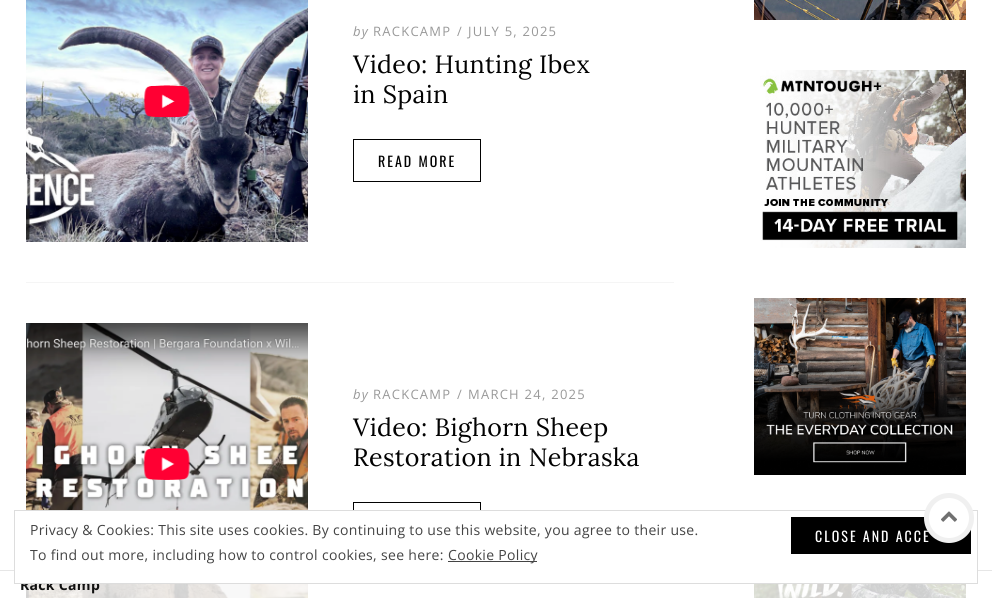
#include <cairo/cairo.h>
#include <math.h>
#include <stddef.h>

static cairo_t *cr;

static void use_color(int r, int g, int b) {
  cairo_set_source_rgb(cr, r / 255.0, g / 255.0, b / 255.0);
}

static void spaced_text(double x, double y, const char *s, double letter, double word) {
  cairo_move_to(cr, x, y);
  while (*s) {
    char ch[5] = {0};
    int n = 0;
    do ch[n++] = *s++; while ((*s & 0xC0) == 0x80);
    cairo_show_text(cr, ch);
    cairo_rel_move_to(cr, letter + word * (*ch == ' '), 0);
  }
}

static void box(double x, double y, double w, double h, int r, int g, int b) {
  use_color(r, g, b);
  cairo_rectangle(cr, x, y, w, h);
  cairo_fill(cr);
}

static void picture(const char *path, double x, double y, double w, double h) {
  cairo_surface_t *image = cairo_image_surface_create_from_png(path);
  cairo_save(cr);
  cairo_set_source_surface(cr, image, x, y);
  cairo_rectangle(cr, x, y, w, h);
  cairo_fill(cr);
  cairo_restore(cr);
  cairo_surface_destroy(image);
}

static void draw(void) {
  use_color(255, 255, 255);
  cairo_paint(cr);
  box(26, 282, 648, 1, 245, 245, 245);
  picture("img_01.png", 26, 0, 282, 242);
  cairo_rectangle(cr, 353.5, 139.5, 127, 42);
  use_color(2, 2, 2);
  cairo_set_line_width(cr, 1);
  cairo_stroke(cr);
  picture("img_02.png", 26, 323, 282, 275);
  cairo_rectangle(cr, 353.5, 502.5, 127, 42);
  cairo_stroke(cr);
  picture("img_03.png", 754, 0, 212, 20);
  picture("img_04.png", 760, 70, 206, 178);
  picture("img_05.png", 754, 298, 212, 177);
  picture("img_06.png", 754, 584, 212, 14);
  cairo_set_source_rgba(cr, 1, 1, 1, 0.8);
  cairo_rectangle(cr, 26, 570, 940, 28);
  cairo_fill(cr);
  cairo_set_source_rgba(cr, 0, 0, 0, 0.1);
  cairo_rectangle(cr, 0, 570, 992, 1);
  cairo_fill(cr);
  cairo_select_font_face(cr, "Open Sans", CAIRO_FONT_SLANT_ITALIC, CAIRO_FONT_WEIGHT_NORMAL);
  cairo_set_font_size(cr, 13);
  use_color(153, 153, 153);
  spaced_text(353, 36, "by", 1.25, 0);
  cairo_select_font_face(cr, "Open Sans", CAIRO_FONT_SLANT_NORMAL, CAIRO_FONT_WEIGHT_NORMAL);
  spaced_text(373, 36, "RACKCAMP", 1.25, 0);
  spaced_text(457, 36, "/", 1.25, 0);
  spaced_text(468, 36, "JULY 5, 2025", 1.25, 0);
  cairo_select_font_face(cr, "Lora", CAIRO_FONT_SLANT_NORMAL, CAIRO_FONT_WEIGHT_NORMAL);
  cairo_set_font_size(cr, 25);
  use_color(2, 2, 2);
  spaced_text(353, 73, "Video: Hunting Ibex", 0.32, 0);
  spaced_text(353, 103, "in Spain", 0.32, 0);
  cairo_select_font_face(cr, "Oswald", CAIRO_FONT_SLANT_NORMAL, CAIRO_FONT_WEIGHT_NORMAL);
  cairo_set_font_size(cr, 14);
  spaced_text(378, 167, "READ MORE", 2, 0);
  cairo_select_font_face(cr, "Open Sans", CAIRO_FONT_SLANT_ITALIC, CAIRO_FONT_WEIGHT_NORMAL);
  cairo_set_font_size(cr, 13);
  use_color(153, 153, 153);
  spaced_text(353, 399, "by", 1.25, 0);
  cairo_select_font_face(cr, "Open Sans", CAIRO_FONT_SLANT_NORMAL, CAIRO_FONT_WEIGHT_NORMAL);
  spaced_text(373, 399, "RACKCAMP", 1.25, 0);
  spaced_text(457, 399, "/", 1.25, 0);
  spaced_text(468, 399, "MARCH 24, 2025", 1.25, 0);
  cairo_select_font_face(cr, "Lora", CAIRO_FONT_SLANT_NORMAL, CAIRO_FONT_WEIGHT_NORMAL);
  cairo_set_font_size(cr, 25);
  use_color(2, 2, 2);
  spaced_text(353, 436, "Video: Bighorn Sheep", 0.32, 0);
  spaced_text(353, 466, "Restoration in Nebraska", 0.32, 0);
  cairo_select_font_face(cr, "Open Sans", CAIRO_FONT_SLANT_NORMAL, CAIRO_FONT_WEIGHT_BOLD);
  cairo_set_font_size(cr, 14);
  use_color(17, 17, 17);
  spaced_text(20, 590, "Rack Camp", 0.32, 0);
  use_color(255, 255, 255);
  cairo_rectangle(cr, 14.5, 510.5, 963, 73);
  cairo_fill_preserve(cr);
  use_color(221, 221, 221);
  cairo_stroke(cr);
  box(791, 517, 180, 37, 0, 0, 0);
  use_color(255, 255, 255);
  cairo_arc(cr, 949, 518, 22.5, 0, 2 * M_PI);
  cairo_fill_preserve(cr);
  use_color(240, 240, 240);
  cairo_set_line_width(cr, 5);
  cairo_stroke(cr);
  picture("img_07.png", 941, 511, 16, 11);
  cairo_select_font_face(cr, "Oswald", CAIRO_FONT_SLANT_NORMAL, CAIRO_FONT_WEIGHT_NORMAL);
  use_color(255, 255, 255);
  spaced_text(815, 542, "CLOSE AND ACCE", 2, 0);
  box(448, 561, 89, 1, 68, 68, 68);
  cairo_select_font_face(cr, "Open Sans", CAIRO_FONT_SLANT_NORMAL, CAIRO_FONT_WEIGHT_NORMAL);
  spaced_text(448, 560, "Cookie Policy", 0.32, 0);
  spaced_text(30, 560, "To find out more, including how to control cookies, see here:", 0.32, 0);
  spaced_text(30, 535, "Privacy & Cookies: This site uses cookies. By continuing to use this website, you agree to their use.", 0.32, 0);
}

int main(void) {
  cairo_surface_t *surface = cairo_image_surface_create(CAIRO_FORMAT_RGB24, 992, 598);
  cr = cairo_create(surface);
  cairo_font_options_t *options = cairo_font_options_create();
  cairo_font_options_set_hint_metrics(options, CAIRO_HINT_METRICS_OFF);
  cairo_font_options_set_hint_style(options, CAIRO_HINT_STYLE_NONE);
  cairo_set_font_options(cr, options);
  cairo_set_miter_limit(cr, 4);
  draw();
  cairo_surface_write_to_png(surface, "out.png");
  cairo_font_options_destroy(options);
  cairo_destroy(cr);
  cairo_surface_destroy(surface);
  return 0;
}
